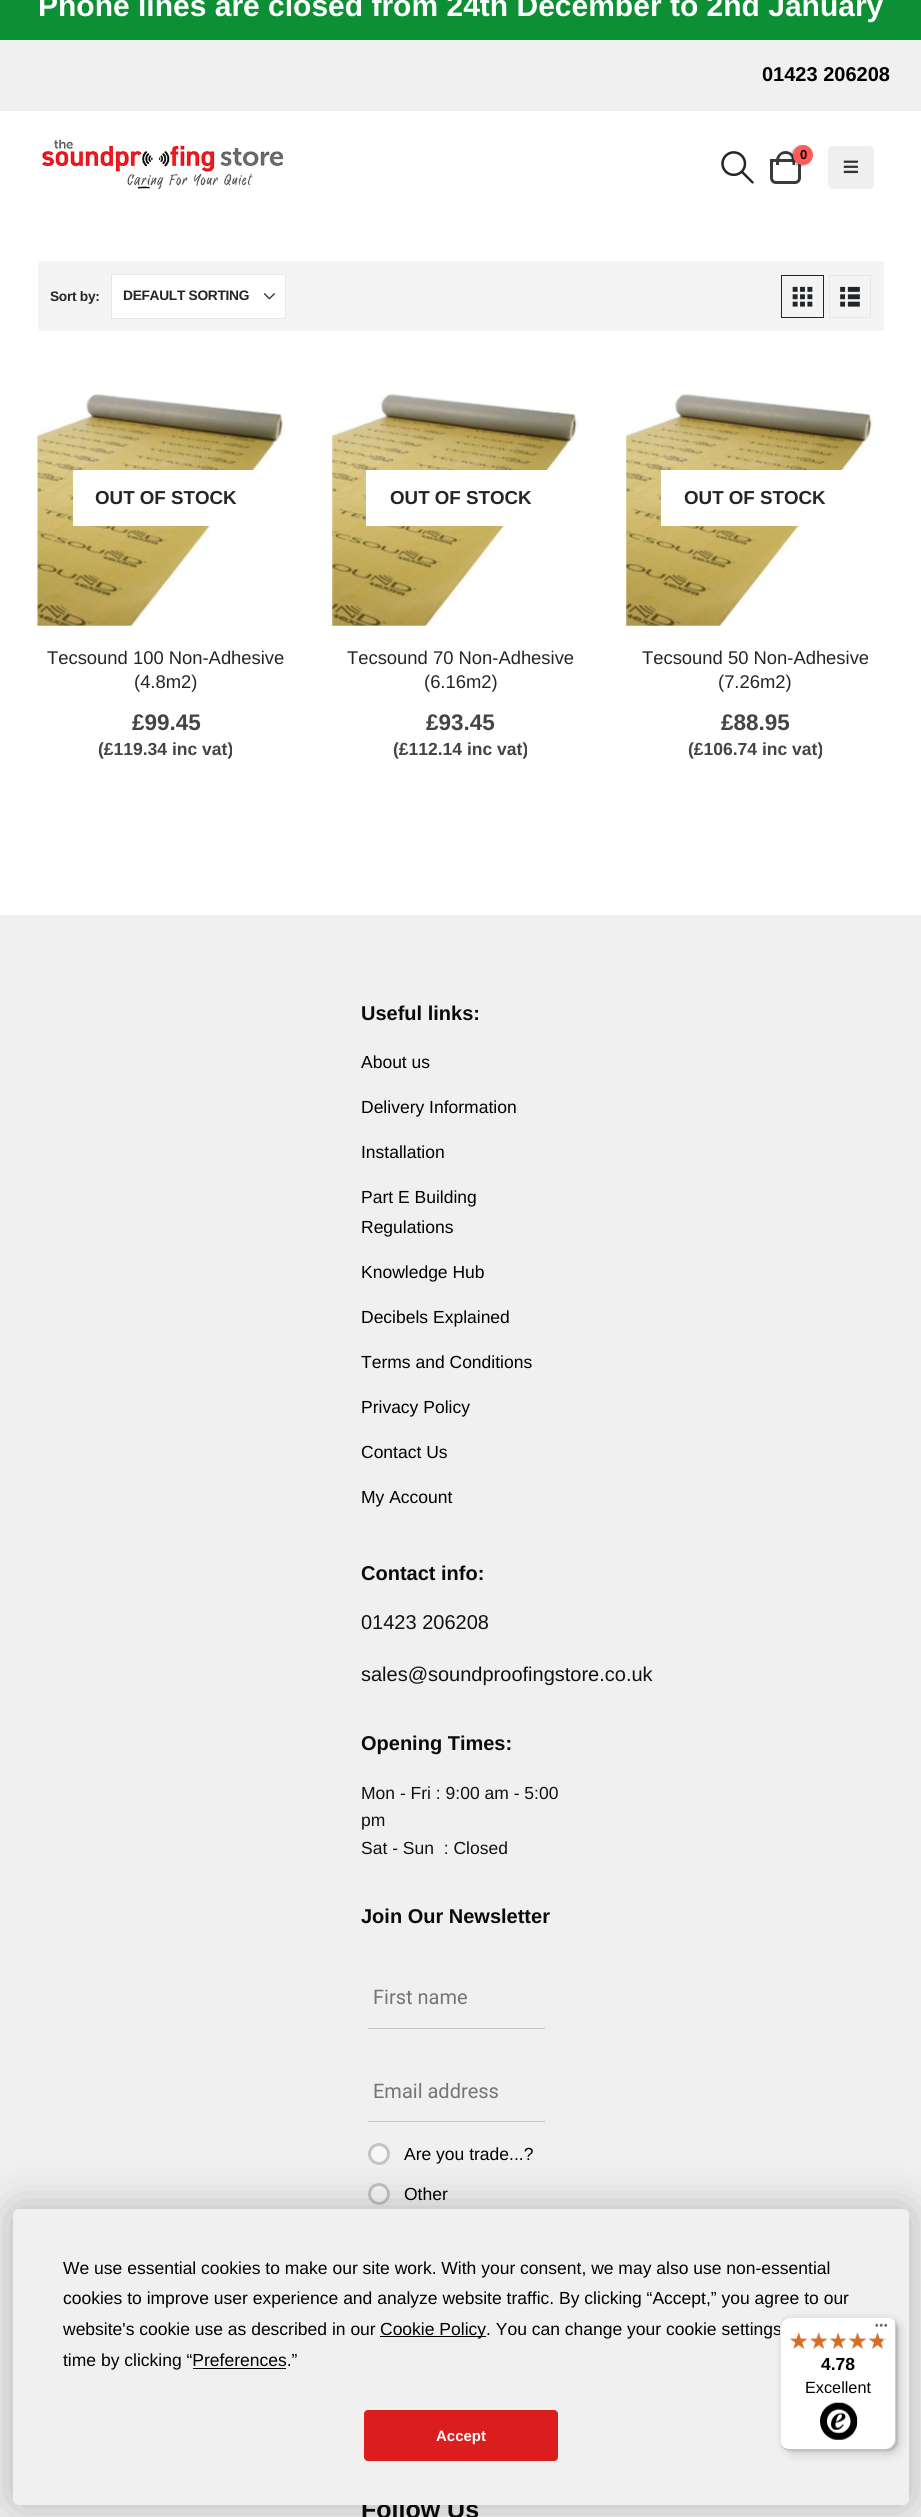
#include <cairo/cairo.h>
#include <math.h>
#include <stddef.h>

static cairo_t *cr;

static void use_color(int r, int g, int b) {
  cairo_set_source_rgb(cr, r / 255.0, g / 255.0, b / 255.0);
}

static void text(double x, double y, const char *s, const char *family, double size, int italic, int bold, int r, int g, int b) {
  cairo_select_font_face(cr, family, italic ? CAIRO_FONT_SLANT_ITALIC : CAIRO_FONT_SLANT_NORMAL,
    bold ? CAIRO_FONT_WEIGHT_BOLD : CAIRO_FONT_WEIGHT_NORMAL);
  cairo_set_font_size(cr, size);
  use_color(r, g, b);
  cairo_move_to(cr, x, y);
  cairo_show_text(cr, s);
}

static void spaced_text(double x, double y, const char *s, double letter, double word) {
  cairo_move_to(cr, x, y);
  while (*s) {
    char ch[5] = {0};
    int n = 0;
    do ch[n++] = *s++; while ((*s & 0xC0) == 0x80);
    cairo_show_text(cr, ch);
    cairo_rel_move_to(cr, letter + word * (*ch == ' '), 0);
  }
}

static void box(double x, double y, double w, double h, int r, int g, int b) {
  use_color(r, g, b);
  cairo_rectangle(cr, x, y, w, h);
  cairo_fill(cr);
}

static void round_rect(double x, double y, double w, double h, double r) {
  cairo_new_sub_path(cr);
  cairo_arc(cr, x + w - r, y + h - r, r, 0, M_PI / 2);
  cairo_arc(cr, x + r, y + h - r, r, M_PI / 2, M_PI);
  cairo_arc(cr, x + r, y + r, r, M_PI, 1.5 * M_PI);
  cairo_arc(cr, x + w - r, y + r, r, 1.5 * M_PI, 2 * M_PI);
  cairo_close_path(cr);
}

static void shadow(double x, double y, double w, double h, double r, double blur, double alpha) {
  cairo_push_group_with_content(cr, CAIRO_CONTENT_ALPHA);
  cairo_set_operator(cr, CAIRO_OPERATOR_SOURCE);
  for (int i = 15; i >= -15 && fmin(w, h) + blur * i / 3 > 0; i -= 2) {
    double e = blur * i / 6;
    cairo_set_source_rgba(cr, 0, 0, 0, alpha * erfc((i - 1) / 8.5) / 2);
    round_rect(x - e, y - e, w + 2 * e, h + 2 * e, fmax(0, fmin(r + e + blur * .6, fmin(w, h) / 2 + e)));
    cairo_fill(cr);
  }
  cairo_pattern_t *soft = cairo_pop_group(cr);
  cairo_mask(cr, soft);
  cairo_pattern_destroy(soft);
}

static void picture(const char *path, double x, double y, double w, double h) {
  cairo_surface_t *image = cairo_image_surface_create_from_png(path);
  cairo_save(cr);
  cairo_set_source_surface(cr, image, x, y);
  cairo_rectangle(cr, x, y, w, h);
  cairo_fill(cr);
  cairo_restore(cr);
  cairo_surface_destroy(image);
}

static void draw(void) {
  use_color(240, 240, 240);
  cairo_paint(cr);
  box(0, 0, 921, 40, 13, 143, 54);
  box(0, 111, 921, 804, 255, 255, 255);
  picture("img_01.png", 42, 139, 242, 50);
  picture("img_02.png", 721, 151, 33, 33);
  cairo_new_path(cr);
  cairo_move_to(cr, 771.5, 160.5);
  cairo_line_to(cr, 799.5, 160.5);
  cairo_line_to(cr, 799.5, 178);
  cairo_curve_to(cr, 799.5, 180.5, 797.5, 182.5, 795, 182.5);
  cairo_line_to(cr, 776, 182.5);
  cairo_curve_to(cr, 773.5, 182.5, 771.5, 180.5, 771.5, 178);
  cairo_close_path(cr);
  use_color(56, 59, 62);
  cairo_set_line_width(cr, 3);
  cairo_stroke(cr);
  cairo_set_fill_rule(cr, CAIRO_FILL_RULE_EVEN_ODD);
  cairo_new_path(cr);
  cairo_move_to(cr, 785.5, 151);
  cairo_curve_to(cr, 791, 151, 795, 155.5, 795, 160.5);
  cairo_line_to(cr, 795, 165);
  cairo_line_to(cr, 776, 165);
  cairo_line_to(cr, 776, 160.5);
  cairo_curve_to(cr, 776, 155.5, 780.5, 151, 785.5, 151);
  cairo_close_path(cr);
  cairo_move_to(cr, 785.5, 154);
  cairo_curve_to(cr, 792.5, 154, 792.5, 160, 792.5, 165);
  cairo_line_to(cr, 779, 165);
  cairo_curve_to(cr, 779, 160, 778.5, 154, 785.5, 154);
  cairo_close_path(cr);
  cairo_fill(cr);
  use_color(0, 0, 0);
  shadow(791, 146, 20, 20, 10, 1, 0.3);
  use_color(255, 91, 91);
  cairo_arc(cr, 803, 155, 10, 0, 2 * M_PI);
  cairo_fill(cr);
  use_color(239, 239, 239);
  round_rect(828, 146, 46, 43, 5);
  cairo_fill(cr);
  picture("img_03.png", 843, 160, 15, 14);
  box(38, 261, 846, 70, 244, 244, 244);
  box(112, 275, 173, 43, 255, 255, 255);
  picture("img_04.png", 263, 293, 12, 7);
  cairo_rectangle(cr, 111.5, 274.5, 174, 44);
  use_color(231, 231, 231);
  cairo_set_line_width(cr, 1);
  cairo_stroke(cr);
  cairo_rectangle(cr, 781.5, 275.5, 42, 42);
  use_color(34, 37, 41);
  cairo_stroke(cr);
  picture("img_05.png", 792, 286, 21, 21);
  cairo_rectangle(cr, 829.5, 275.5, 41, 42);
  use_color(231, 231, 231);
  cairo_stroke(cr);
  picture("img_06.png", 840, 286, 20, 21);
  picture("img_07.png", 37, 394, 248, 232);
  box(73, 470, 187, 56, 255, 255, 255);
  picture("img_08.png", 332, 394, 247, 232);
  box(366, 470, 188, 56, 255, 255, 255);
  picture("img_09.png", 626, 394, 247, 232);
  box(661, 470, 187, 56, 255, 255, 255);
  box(368, 2028, 177, 1, 196, 196, 196);
  box(368, 2121, 177, 1, 196, 196, 196);
  use_color(247, 247, 247);
  cairo_arc(cr, 379, 2154, 9.5, 0, 2 * M_PI);
  cairo_fill_preserve(cr);
  use_color(196, 196, 196);
  cairo_set_line_width(cr, 3);
  cairo_stroke(cr);
  use_color(247, 247, 247);
  cairo_arc(cr, 379, 2194, 9.5, 0, 2 * M_PI);
  cairo_fill_preserve(cr);
  use_color(196, 196, 196);
  cairo_stroke(cr);
  use_color(0, 0, 0);
  shadow(13, 2209, 896, 296, 6, 22, 0.25);
  text(38, 16, "Phone lines are closed from 24th December to 2nd January", "Liberation Sans", 30, 0, 1, 255, 255, 255);
  text(762, 81, "01423 206208", "Liberation Sans", 20, 0, 1, 0, 0, 0);
  text(800, 159, "0", "Liberation Sans", 13, 0, 1, 0, 0, 0);
  cairo_set_font_size(cr, 13.75);
  use_color(34, 37, 41);
  spaced_text(50, 301, "Sort by:", -0.3, 0);
  spaced_text(123, 300, "DEFAULT SORTING", -0.3, 0);
  text(95, 504, "OUT OF STOCK", "Liberation Sans", 18.75, 0, 1, 34, 37, 41);
  text(47, 664, "Tecsound 100 Non-Adhesive", "Liberation Sans", 18.4, 0, 0, 34, 37, 41);
  text(134, 688, "(4.8m2)", "Liberation Sans", 18.4, 0, 0, 34, 37, 41);
  text(132, 730, "£99.45", "Liberation Sans", 22.5, 0, 1, 68, 68, 68);
  text(98, 755, "(£119.34 inc vat)", "Liberation Sans", 17.5, 0, 1, 68, 68, 68);
  text(390, 504, "OUT OF STOCK", "Liberation Sans", 18.75, 0, 1, 34, 37, 41);
  text(347, 664, "Tecsound 70 Non-Adhesive", "Liberation Sans", 18.4, 0, 0, 34, 37, 41);
  text(424, 688, "(6.16m2)", "Liberation Sans", 18.4, 0, 0, 34, 37, 41);
  text(426, 730, "£93.45", "Liberation Sans", 22.5, 0, 1, 68, 68, 68);
  text(393, 755, "(£112.14 inc vat)", "Liberation Sans", 17.5, 0, 1, 68, 68, 68);
  text(684, 504, "OUT OF STOCK", "Liberation Sans", 18.75, 0, 1, 34, 37, 41);
  text(642, 664, "Tecsound 50 Non-Adhesive", "Liberation Sans", 18.4, 0, 0, 34, 37, 41);
  text(718, 688, "(7.26m2)", "Liberation Sans", 18.4, 0, 0, 34, 37, 41);
  text(721, 730, "£88.95", "Liberation Sans", 22.5, 0, 1, 68, 68, 68);
  text(688, 755, "(£106.74 inc vat)", "Liberation Sans", 17.5, 0, 1, 68, 68, 68);
  text(361, 1020, "Useful links:", "Liberation Sans", 20, 0, 1, 10, 10, 10);
  text(361, 1068, "About us", "Liberation Sans", 17.5, 0, 0, 0, 0, 0);
  text(361, 1113, "Delivery Information", "Liberation Sans", 17.5, 0, 0, 0, 0, 0);
  text(361, 1158, "Installation", "Liberation Sans", 17.5, 0, 0, 0, 0, 0);
  text(361, 1203, "Part E Building", "Liberation Sans", 17.5, 0, 0, 0, 0, 0);
  text(361, 1233, "Regulations", "Liberation Sans", 17.5, 0, 0, 0, 0, 0);
  text(361, 1278, "Knowledge Hub", "Liberation Sans", 17.5, 0, 0, 0, 0, 0);
  text(361, 1323, "Decibels Explained", "Liberation Sans", 17.5, 0, 0, 0, 0, 0);
  text(361, 1368, "Terms and Conditions", "Liberation Sans", 17.5, 0, 0, 0, 0, 0);
  text(361, 1413, "Privacy Policy", "Liberation Sans", 17.5, 0, 0, 0, 0, 0);
  text(361, 1458, "Contact Us", "Liberation Sans", 17.5, 0, 0, 0, 0, 0);
  text(361, 1503, "My Account", "Liberation Sans", 17.5, 0, 0, 0, 0, 0);
  text(361, 1580, "Contact info:", "Liberation Sans", 20, 0, 1, 10, 10, 10);
  text(361, 1629, "01423 206208", "Liberation Sans", 20, 0, 0, 17, 17, 17);
  text(361, 1681, "sales@soundproofingstore.co.uk", "Liberation Sans", 20, 0, 0, 17, 17, 17);
  text(361, 1750, "Opening Times:", "Liberation Sans", 20, 0, 1, 10, 10, 10);
  text(361, 1799, "Mon - Fri : 9:00 am - 5:00", "Liberation Sans", 17.5, 0, 0, 17, 17, 17);
  text(361, 1826, "pm", "Liberation Sans", 17.5, 0, 0, 17, 17, 17);
  text(361, 1854, "Sat - Sun  : Closed", "Liberation Sans", 17.5, 0, 0, 17, 17, 17);
  text(361, 1923, "Join Our Newsletter", "Liberation Sans", 20, 0, 1, 10, 10, 10);
  text(373, 2004, "First name", "Roboto", 20, 0, 0, 117, 117, 117);
  text(373, 2098, "Email address", "Roboto", 20, 0, 0, 117, 117, 117);
  text(404, 2160, "Are you trade...?", "Liberation Sans", 17.5, 0, 0, 0, 0, 0);
  text(404, 2200, "Other", "Liberation Sans", 17.5, 0, 0, 0, 0, 0);
  text(361, 2518, "Follow Us", "Liberation Sans", 25, 0, 1, 10, 10, 10);
  use_color(240, 240, 240);
  round_rect(13, 2209, 896, 296, 6);
  cairo_fill(cr);
  text(63, 2274, "We use essential cookies to make our site work. With your consent, we may also use non-essential", "Liberation Sans", 17.5, 0, 0, 0, 0, 0);
  text(63, 2304, "cookies to improve user experience and analyze website traffic. By clicking “Accept,” you agree to our", "Liberation Sans", 17.5, 0, 0, 0, 0, 0);
  text(63, 2335, "website's cookie use as described in our", "Liberation Sans", 17.5, 0, 0, 0, 0, 0);
  box(380, 2336, 106, 1, 0, 0, 0);
  text(380, 2335, "Cookie Policy. You can change your cookie settings", "Liberation Sans", 17.5, 0, 0, 0, 0, 0);
  text(63, 2366, "time by clicking “Preferences.”", "Liberation Sans", 17.5, 0, 0, 0, 0, 0);
  box(193, 2368, 93, 1, 0, 0, 0);
  use_color(220, 29, 29);
  round_rect(364.5, 2410.5, 193, 50, 3.5);
  cairo_fill_preserve(cr);
  cairo_set_line_width(cr, 1);
  cairo_stroke(cr);
  text(436, 2441, "Accept", "Liberation Sans", 15, 0, 1, 255, 255, 255);
  use_color(0, 0, 0);
  shadow(784, 2320, 116, 134, 10, 5, 0.15);
  shadow(781, 2318, 117, 133, 10, 1, 0.15);
  use_color(255, 255, 255);
  round_rect(780, 2316, 116, 134, 10);
  cairo_fill(cr);
  cairo_set_source_rgba(cr, 0, 0, 0, 0.1);
  cairo_set_fill_rule(cr, CAIRO_FILL_RULE_WINDING);
  cairo_new_path(cr);
  cairo_move_to(cr, 791, 2318);
  cairo_line_to(cr, 888, 2318);
  cairo_curve_to(cr, 890, 2318, 892, 2319, 894, 2320);
  cairo_curve_to(cr, 892, 2318, 889, 2316, 886, 2316);
  cairo_line_to(cr, 790, 2316);
  cairo_curve_to(cr, 784, 2316, 780, 2320, 780, 2326);
  cairo_line_to(cr, 780, 2440);
  cairo_curve_to(cr, 780, 2443, 781, 2446, 783, 2448);
  cairo_curve_to(cr, 782, 2446, 781, 2444, 781, 2441);
  cairo_line_to(cr, 781, 2328);
  cairo_curve_to(cr, 781, 2322, 786, 2318, 791, 2318);
  cairo_close_path(cr);
  cairo_fill(cr);
  cairo_set_source_rgba(cr, 0, 0, 0, 0.2);
  cairo_new_path(cr);
  cairo_move_to(cr, 782, 2447);
  cairo_curve_to(cr, 784, 2449, 787, 2450, 790, 2450);
  cairo_line_to(cr, 886, 2450);
  cairo_curve_to(cr, 892, 2450, 896, 2446, 896, 2440);
  cairo_line_to(cr, 896, 2326);
  cairo_curve_to(cr, 896, 2324, 895, 2321, 894, 2320);
  cairo_curve_to(cr, 895, 2321, 895, 2323, 895, 2325);
  cairo_line_to(cr, 895, 2439);
  cairo_curve_to(cr, 895, 2444, 891, 2449, 885, 2449);
  cairo_line_to(cr, 789, 2449);
  cairo_curve_to(cr, 786, 2449, 784, 2448, 782, 2447);
  cairo_close_path(cr);
  cairo_fill(cr);
  picture("img_10.png", 875, 2323, 13, 4);
  cairo_set_source_rgba(cr, 0.196, 0.196, 0.196, 0.2);
  cairo_set_fill_rule(cr, CAIRO_FILL_RULE_EVEN_ODD);
  cairo_new_path(cr);
  cairo_move_to(cr, 782, 2446);
  cairo_curve_to(cr, 784, 2449, 787, 2450, 790, 2450);
  cairo_line_to(cr, 886, 2450);
  cairo_curve_to(cr, 892, 2450, 896, 2446, 896, 2440);
  cairo_line_to(cr, 896, 2439);
  cairo_curve_to(cr, 896, 2445, 891, 2449, 886, 2449);
  cairo_line_to(cr, 789, 2449);
  cairo_curve_to(cr, 787, 2449, 784, 2448, 782, 2446);
  cairo_close_path(cr);
  cairo_move_to(cr, 894, 2320);
  cairo_curve_to(cr, 892, 2317, 889, 2316, 886, 2316);
  cairo_curve_to(cr, 889, 2316, 892, 2317, 894, 2320);
  cairo_close_path(cr);
  cairo_fill(cr);
  cairo_set_source_rgba(cr, 1, 1, 1, 0.3);
  cairo_new_path(cr);
  cairo_move_to(cr, 782, 2446);
  cairo_curve_to(cr, 784, 2449, 787, 2450, 790, 2450);
  cairo_line_to(cr, 886, 2450);
  cairo_curve_to(cr, 892, 2450, 896, 2446, 896, 2440);
  cairo_line_to(cr, 896, 2439);
  cairo_curve_to(cr, 896, 2445, 891, 2449, 886, 2449);
  cairo_line_to(cr, 789, 2449);
  cairo_curve_to(cr, 787, 2449, 784, 2448, 782, 2446);
  cairo_close_path(cr);
  cairo_move_to(cr, 894, 2320);
  cairo_curve_to(cr, 892, 2317, 889, 2316, 886, 2316);
  cairo_curve_to(cr, 889, 2316, 892, 2317, 894, 2320);
  cairo_close_path(cr);
  cairo_fill(cr);
  picture("img_11.png", 790, 2332, 17, 17);
  picture("img_12.png", 810, 2332, 17, 17);
  picture("img_13.png", 830, 2333, 16, 16);
  picture("img_14.png", 849, 2332, 17, 17);
  picture("img_15.png", 869, 2332, 17, 17);
  picture("img_16.png", 790, 2332, 17, 17);
  picture("img_17.png", 810, 2332, 18, 17);
  picture("img_18.png", 830, 2332, 16, 17);
  picture("img_19.png", 848, 2332, 18, 17);
  picture("img_20.png", 869, 2332, 14, 17);
  text(821, 2370, "4.78", "Liberation Sans", 17.5, 0, 1, 0, 0, 0);
  text(805, 2393, "Excellent", "Liberation Sans", 16.25, 0, 0, 0, 0, 0);
  picture("img_21.png", 820, 2402, 38, 38);
}

int main(void) {
  cairo_surface_t *surface = cairo_image_surface_create(CAIRO_FORMAT_RGB24, 921, 2517);
  cr = cairo_create(surface);
  cairo_font_options_t *options = cairo_font_options_create();
  cairo_font_options_set_hint_metrics(options, CAIRO_HINT_METRICS_OFF);
  cairo_font_options_set_hint_style(options, CAIRO_HINT_STYLE_NONE);
  cairo_set_font_options(cr, options);
  cairo_set_miter_limit(cr, 4);
  draw();
  cairo_surface_write_to_png(surface, "out.png");
  cairo_font_options_destroy(options);
  cairo_destroy(cr);
  cairo_surface_destroy(surface);
  return 0;
}
